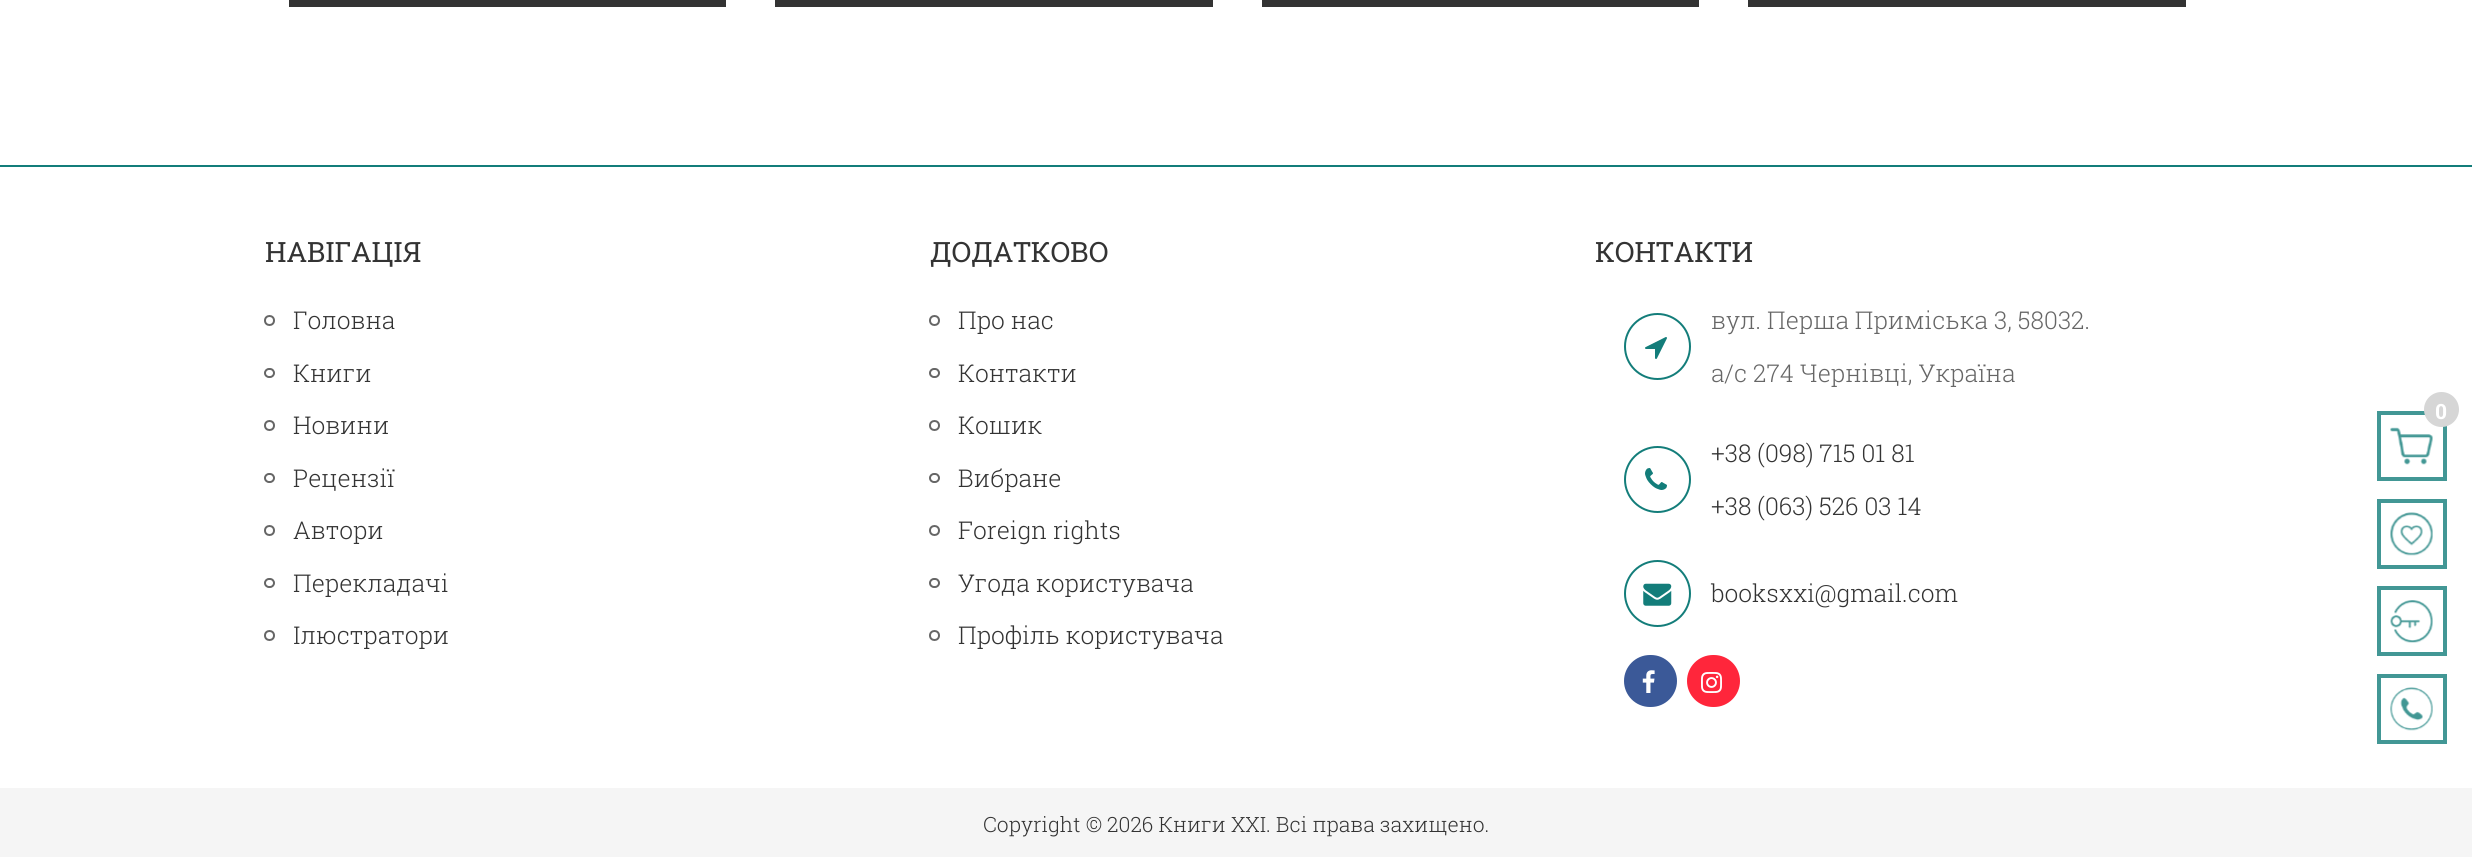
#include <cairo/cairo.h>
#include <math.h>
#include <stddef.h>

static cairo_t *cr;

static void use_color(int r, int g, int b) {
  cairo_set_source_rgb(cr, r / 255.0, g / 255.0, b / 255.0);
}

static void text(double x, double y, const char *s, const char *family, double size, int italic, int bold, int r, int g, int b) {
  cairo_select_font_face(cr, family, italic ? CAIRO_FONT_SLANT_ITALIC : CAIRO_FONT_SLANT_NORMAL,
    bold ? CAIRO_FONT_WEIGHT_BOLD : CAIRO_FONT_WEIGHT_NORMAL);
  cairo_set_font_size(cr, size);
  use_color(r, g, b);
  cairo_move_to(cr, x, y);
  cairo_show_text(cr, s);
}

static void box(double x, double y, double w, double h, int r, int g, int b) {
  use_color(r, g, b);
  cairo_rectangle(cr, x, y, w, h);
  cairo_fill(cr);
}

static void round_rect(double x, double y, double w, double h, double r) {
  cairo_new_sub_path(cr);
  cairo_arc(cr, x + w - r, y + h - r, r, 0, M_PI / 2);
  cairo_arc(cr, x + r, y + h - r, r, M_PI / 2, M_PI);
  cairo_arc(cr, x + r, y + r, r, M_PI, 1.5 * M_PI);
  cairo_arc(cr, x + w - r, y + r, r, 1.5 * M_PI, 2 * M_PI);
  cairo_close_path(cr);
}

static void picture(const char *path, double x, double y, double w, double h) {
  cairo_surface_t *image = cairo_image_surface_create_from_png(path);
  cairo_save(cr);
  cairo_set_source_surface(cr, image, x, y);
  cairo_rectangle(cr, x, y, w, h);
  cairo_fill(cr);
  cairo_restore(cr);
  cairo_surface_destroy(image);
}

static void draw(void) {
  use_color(255, 255, 255);
  cairo_paint(cr);
  box(289, 0, 437, 7, 51, 51, 51);
  box(775, 0, 438, 7, 51, 51, 51);
  box(1262, 0, 437, 7, 51, 51, 51);
  box(1748, 0, 438, 7, 51, 51, 51);
  box(0, 165, 2472, 2, 19, 125, 122);
  cairo_arc(cr, 269.5, 320.5, 4.5, 0, 2 * M_PI);
  use_color(102, 102, 102);
  cairo_stroke(cr);
  round_rect(265, 369, 9, 8, 4);
  cairo_stroke(cr);
  cairo_arc(cr, 269.5, 425.5, 4.5, 0, 2 * M_PI);
  cairo_stroke(cr);
  round_rect(265, 474, 9, 8, 4);
  cairo_stroke(cr);
  cairo_arc(cr, 269.5, 530.5, 4.5, 0, 2 * M_PI);
  cairo_stroke(cr);
  round_rect(265, 579, 9, 8, 4);
  cairo_stroke(cr);
  cairo_arc(cr, 269.5, 635.5, 4.5, 0, 2 * M_PI);
  cairo_stroke(cr);
  cairo_arc(cr, 934.5, 320.5, 4.5, 0, 2 * M_PI);
  cairo_stroke(cr);
  round_rect(930, 369, 9, 8, 4);
  cairo_stroke(cr);
  cairo_arc(cr, 934.5, 425.5, 4.5, 0, 2 * M_PI);
  cairo_stroke(cr);
  round_rect(930, 474, 9, 8, 4);
  cairo_stroke(cr);
  cairo_arc(cr, 934.5, 530.5, 4.5, 0, 2 * M_PI);
  cairo_stroke(cr);
  round_rect(930, 579, 9, 8, 4);
  cairo_stroke(cr);
  cairo_arc(cr, 934.5, 635.5, 4.5, 0, 2 * M_PI);
  cairo_stroke(cr);
  cairo_arc(cr, 1657.5, 346.5, 32.5, 0, 2 * M_PI);
  use_color(19, 125, 122);
  cairo_stroke(cr);
  picture("img_01.png", 1645, 337, 22, 22);
  cairo_arc(cr, 1657.5, 479.5, 32.5, 0, 2 * M_PI);
  cairo_stroke(cr);
  picture("img_02.png", 1645, 468, 22, 22);
  cairo_arc(cr, 1657.5, 593.5, 32.5, 0, 2 * M_PI);
  cairo_stroke(cr);
  picture("img_03.png", 1643, 583, 29, 23);
  use_color(59, 89, 152);
  round_rect(1625, 656, 51, 50, 25);
  cairo_fill_preserve(cr);
  cairo_stroke(cr);
  picture("img_04.png", 1642, 670, 13, 23);
  use_color(255, 38, 59);
  round_rect(1688, 656, 51, 50, 25);
  cairo_fill_preserve(cr);
  cairo_stroke(cr);
  picture("img_05.png", 1701, 672, 21, 21);
  box(0, 788, 2472, 69, 245, 245, 245);
  cairo_rectangle(cr, 2379, 413, 66, 66);
  use_color(66, 151, 149);
  cairo_set_line_width(cr, 4);
  cairo_stroke(cr);
  use_color(214, 214, 214);
  cairo_arc(cr, 2441.5, 409.5, 17.5, 0, 2 * M_PI);
  cairo_fill(cr);
  picture("img_06.png", 2390, 427, 43, 38);
  cairo_rectangle(cr, 2379, 501, 66, 66);
  use_color(66, 151, 149);
  cairo_stroke(cr);
  picture("img_07.png", 2390, 512, 43, 44);
  cairo_rectangle(cr, 2379, 588, 66, 66);
  cairo_stroke(cr);
  picture("img_08.png", 2390, 600, 43, 43);
  cairo_rectangle(cr, 2379, 676, 66, 66);
  cairo_stroke(cr);
  picture("img_09.png", 2390, 687, 43, 44);
  text(265, 262, "НАВІГАЦІЯ", "Roboto Slab", 28, 0, 0, 51, 51, 51);
  text(293, 329, "Головна", "Roboto Slab Light", 24.5, 0, 0, 51, 51, 51);
  text(293, 382, "Книги", "Roboto Slab Light", 24.5, 0, 0, 51, 51, 51);
  text(293, 434, "Новини", "Roboto Slab Light", 24.5, 0, 0, 51, 51, 51);
  text(293, 487, "Рецензії", "Roboto Slab Light", 24.5, 0, 0, 51, 51, 51);
  text(293, 539, "Автори", "Roboto Slab Light", 24.5, 0, 0, 51, 51, 51);
  text(293, 592, "Перекладачі", "Roboto Slab Light", 24.5, 0, 0, 51, 51, 51);
  text(293, 644, "Ілюстратори", "Roboto Slab Light", 24.5, 0, 0, 51, 51, 51);
  text(930, 262, "ДОДАТКОВО", "Roboto Slab", 28, 0, 0, 51, 51, 51);
  text(958, 329, "Про нас", "Roboto Slab Light", 24.5, 0, 0, 51, 51, 51);
  text(958, 382, "Контакти", "Roboto Slab Light", 24.5, 0, 0, 51, 51, 51);
  text(958, 434, "Кошик", "Roboto Slab Light", 24.5, 0, 0, 51, 51, 51);
  text(958, 487, "Вибране", "Roboto Slab Light", 24.5, 0, 0, 51, 51, 51);
  text(958, 539, "Foreign rights", "Roboto Slab Light", 24.5, 0, 0, 51, 51, 51);
  text(958, 592, "Угода користувача", "Roboto Slab Light", 24.5, 0, 0, 51, 51, 51);
  text(958, 644, "Профіль користувача", "Roboto Slab Light", 24.5, 0, 0, 51, 51, 51);
  text(1595, 262, "КОНТАКТИ", "Roboto Slab", 28, 0, 0, 51, 51, 51);
  text(1711, 329, "вул. Перша Приміська 3, 58032.", "Roboto Slab Light", 24.5, 0, 0, 102, 102, 102);
  text(1711, 382, "а/с 274 Чернівці, Україна", "Roboto Slab Light", 24.5, 0, 0, 102, 102, 102);
  text(1711, 462, "+38 (098) 715 01 81", "Roboto Slab Light", 24.5, 0, 0, 51, 51, 51);
  text(1711, 515, "+38 (063) 526 03 14", "Roboto Slab Light", 24.5, 0, 0, 51, 51, 51);
  text(1711, 602, "booksxxi@gmail.com", "Roboto Slab Light", 24.5, 0, 0, 51, 51, 51);
  text(983, 832, "Copyright © 2026 Книги XXI. Всі права захищено.", "Roboto Slab Light", 21, 0, 0, 51, 51, 51);
  text(2435, 419, "0", "Roboto Slab", 21, 0, 1, 255, 255, 255);
}

int main(void) {
  cairo_surface_t *surface = cairo_image_surface_create(CAIRO_FORMAT_RGB24, 2472, 857);
  cr = cairo_create(surface);
  cairo_font_options_t *options = cairo_font_options_create();
  cairo_font_options_set_hint_metrics(options, CAIRO_HINT_METRICS_OFF);
  cairo_font_options_set_hint_style(options, CAIRO_HINT_STYLE_NONE);
  cairo_set_font_options(cr, options);
  cairo_set_miter_limit(cr, 4);
  draw();
  cairo_surface_write_to_png(surface, "out.png");
  cairo_font_options_destroy(options);
  cairo_destroy(cr);
  cairo_surface_destroy(surface);
  return 0;
}
